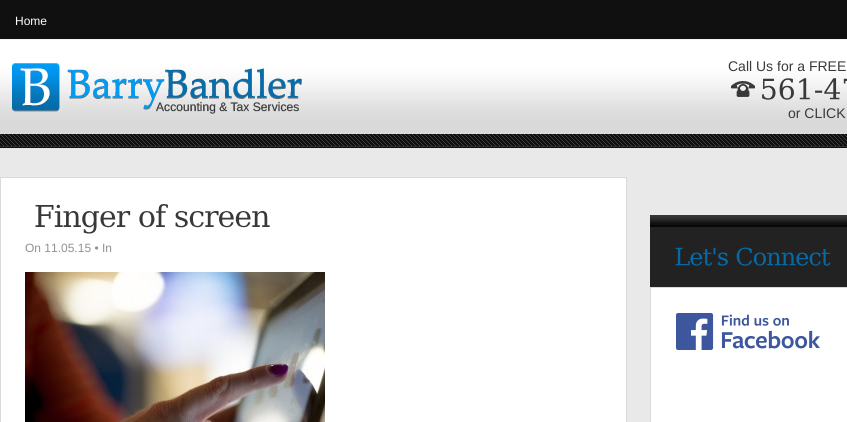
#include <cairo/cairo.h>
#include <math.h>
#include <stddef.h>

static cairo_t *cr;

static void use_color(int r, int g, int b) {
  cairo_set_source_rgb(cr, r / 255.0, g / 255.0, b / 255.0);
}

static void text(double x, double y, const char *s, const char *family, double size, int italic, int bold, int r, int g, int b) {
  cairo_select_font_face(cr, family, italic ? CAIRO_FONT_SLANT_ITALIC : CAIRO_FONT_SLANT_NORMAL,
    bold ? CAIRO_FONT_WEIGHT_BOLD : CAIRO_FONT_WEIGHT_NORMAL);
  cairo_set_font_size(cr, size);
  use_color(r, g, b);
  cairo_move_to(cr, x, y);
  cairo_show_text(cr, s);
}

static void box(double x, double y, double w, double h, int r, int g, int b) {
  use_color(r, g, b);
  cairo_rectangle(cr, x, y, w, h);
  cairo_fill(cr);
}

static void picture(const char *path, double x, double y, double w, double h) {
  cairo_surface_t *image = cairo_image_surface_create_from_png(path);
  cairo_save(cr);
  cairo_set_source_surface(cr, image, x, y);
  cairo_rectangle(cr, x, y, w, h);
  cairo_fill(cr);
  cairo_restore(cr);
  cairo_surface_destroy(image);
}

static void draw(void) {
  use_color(233, 233, 233);
  cairo_paint(cr);
  picture("img_01.png", 0, 0, 847, 148);
  picture("img_02.png", 12, 63, 290, 51);
  picture("img_03.png", 731, 81, 24, 16);
  picture("img_04.png", 762, 78, 85, 22);
  use_color(255, 255, 255);
  cairo_rectangle(cr, 0.5, 177.5, 626, 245);
  cairo_fill_preserve(cr);
  use_color(218, 218, 218);
  cairo_set_line_width(cr, 1);
  cairo_stroke(cr);
  picture("img_05.png", 35, 204, 96, 30);
  picture("img_06.png", 139, 204, 29, 24);
  picture("img_07.png", 175, 211, 95, 17);
  picture("img_08.png", 25, 272, 300, 150);
  box(650, 227, 197, 60, 34, 34, 34);
  picture("img_09.png", 650, 215, 197, 12);
  picture("img_10.png", 675, 247, 53, 19);
  picture("img_11.png", 736, 247, 95, 19);
  use_color(255, 255, 255);
  cairo_rectangle(cr, 650.5, 287.5, 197, 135);
  cairo_fill_preserve(cr);
  use_color(218, 218, 218);
  cairo_stroke(cr);
  picture("img_12.png", 676, 313, 144, 37);
  text(15, 25, "Home", "Liberation Sans", 12, 0, 0, 255, 255, 255);
  text(728, 71, "Call Us for a FREE", "Liberation Sans", 14, 0, 0, 57, 57, 57);
  text(788, 118, "or CLICK", "Liberation Sans", 14, 0, 0, 57, 57, 57);
  text(25, 252, "On 11.05.15 • In", "Liberation Sans", 12, 0, 0, 145, 145, 145);
}

int main(void) {
  cairo_surface_t *surface = cairo_image_surface_create(CAIRO_FORMAT_RGB24, 847, 422);
  cr = cairo_create(surface);
  cairo_font_options_t *options = cairo_font_options_create();
  cairo_font_options_set_hint_metrics(options, CAIRO_HINT_METRICS_OFF);
  cairo_font_options_set_hint_style(options, CAIRO_HINT_STYLE_NONE);
  cairo_set_font_options(cr, options);
  cairo_set_miter_limit(cr, 4);
  draw();
  cairo_surface_write_to_png(surface, "out.png");
  cairo_font_options_destroy(options);
  cairo_destroy(cr);
  cairo_surface_destroy(surface);
  return 0;
}
